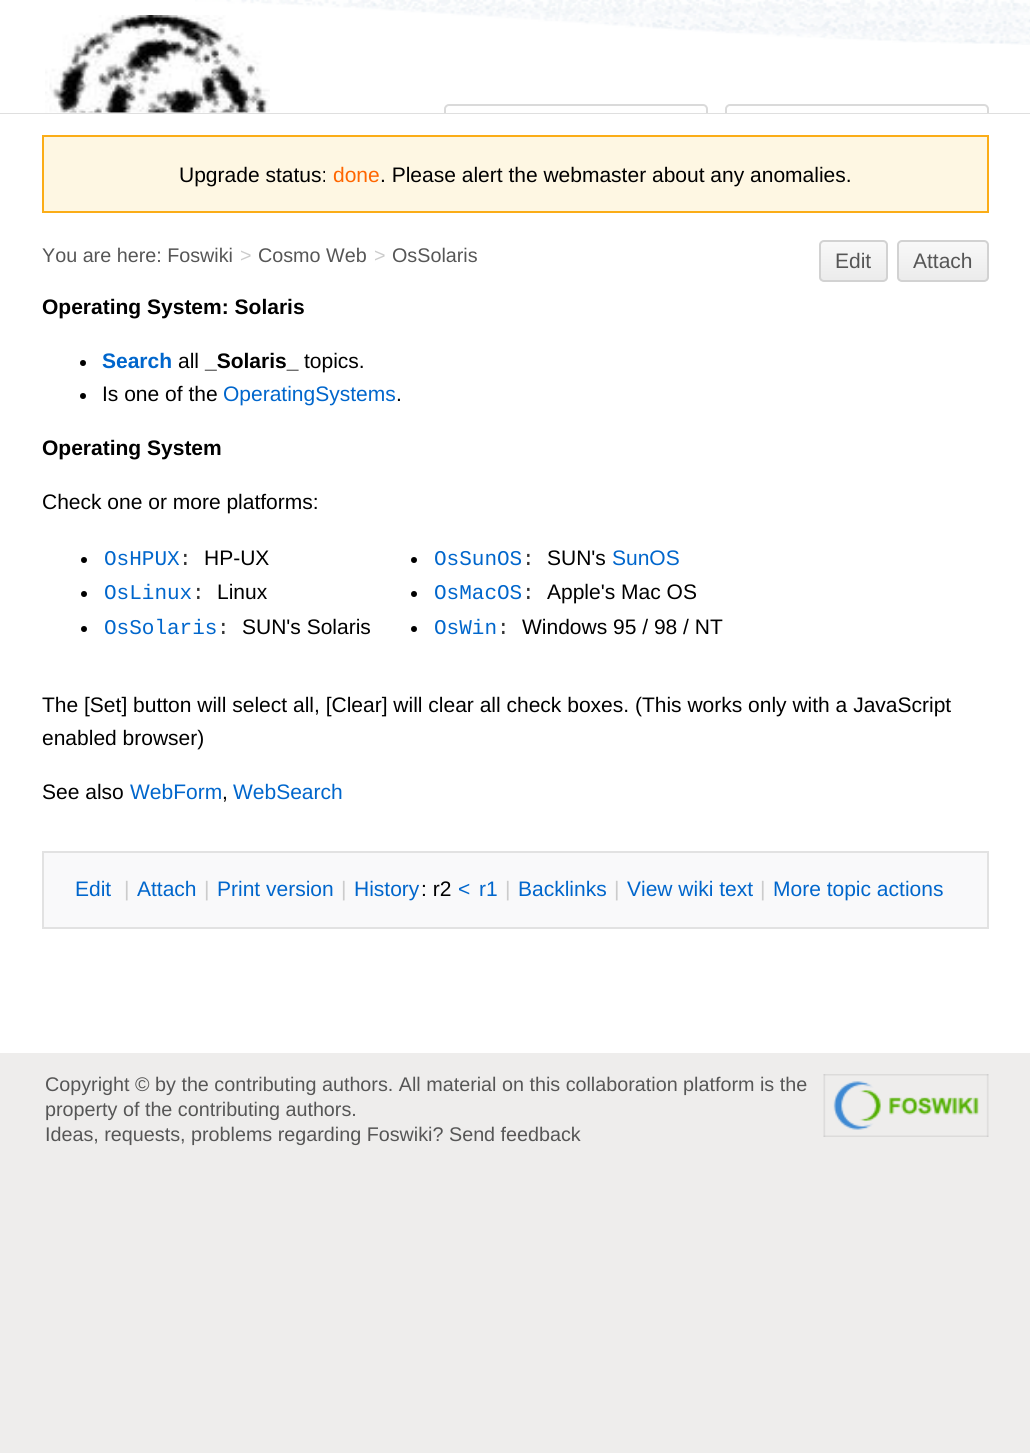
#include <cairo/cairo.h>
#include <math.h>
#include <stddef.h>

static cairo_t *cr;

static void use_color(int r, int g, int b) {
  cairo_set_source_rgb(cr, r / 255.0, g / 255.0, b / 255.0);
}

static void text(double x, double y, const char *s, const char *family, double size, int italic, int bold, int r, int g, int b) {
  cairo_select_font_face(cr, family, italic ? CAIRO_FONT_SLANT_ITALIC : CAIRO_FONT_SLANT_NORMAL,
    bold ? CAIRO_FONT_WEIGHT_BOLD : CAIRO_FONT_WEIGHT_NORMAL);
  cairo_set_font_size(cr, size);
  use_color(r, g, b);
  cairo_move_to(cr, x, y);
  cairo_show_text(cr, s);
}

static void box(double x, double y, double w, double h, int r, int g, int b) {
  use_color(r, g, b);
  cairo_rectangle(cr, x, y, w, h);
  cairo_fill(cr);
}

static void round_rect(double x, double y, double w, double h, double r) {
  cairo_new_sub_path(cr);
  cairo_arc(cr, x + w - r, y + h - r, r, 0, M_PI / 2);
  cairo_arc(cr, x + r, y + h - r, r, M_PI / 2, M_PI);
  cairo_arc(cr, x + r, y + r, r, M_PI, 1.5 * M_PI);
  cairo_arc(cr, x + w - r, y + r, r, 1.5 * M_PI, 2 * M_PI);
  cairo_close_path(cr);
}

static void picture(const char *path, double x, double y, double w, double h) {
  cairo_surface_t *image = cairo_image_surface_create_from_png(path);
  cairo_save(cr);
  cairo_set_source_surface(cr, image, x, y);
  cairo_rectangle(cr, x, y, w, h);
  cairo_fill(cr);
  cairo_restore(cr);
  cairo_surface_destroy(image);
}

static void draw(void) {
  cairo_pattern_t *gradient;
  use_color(238, 237, 236);
  cairo_paint(cr);
  box(0, 113, 1030, 1, 223, 223, 223);
  box(0, 0, 1030, 113, 255, 255, 255);
  picture("img_01.png", 195, 0, 835, 45);
  picture("img_02.png", 45, 15, 225, 98);
  cairo_save(cr);
  cairo_rectangle(cr, 0, 0, 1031, 113);
  cairo_clip(cr);
  round_rect(445, 105, 262, 40, 4);
  use_color(218, 218, 218);
  cairo_stroke(cr);
  round_rect(726, 105, 262, 40, 4);
  cairo_stroke(cr);
  cairo_restore(cr);
  box(0, 114, 1030, 939, 255, 255, 255);
  use_color(254, 247, 227);
  cairo_rectangle(cr, 43, 136, 945, 76);
  cairo_fill_preserve(cr);
  use_color(251, 173, 23);
  cairo_stroke(cr);
  cairo_save(cr);
  round_rect(819, 240, 69, 42, 5);
  cairo_clip(cr);
  gradient = cairo_pattern_create_linear(854, 242, 854, 281);
  cairo_pattern_add_color_stop_rgba(gradient, 0, 0.973, 0.973, 0.973, 1);
  cairo_pattern_add_color_stop_rgba(gradient, 1, 0.922, 0.922, 0.922, 1);
  cairo_set_source(cr, gradient);
  cairo_pattern_destroy(gradient);
  cairo_rectangle(cr, 819, 242, 69, 39);
  cairo_fill(cr);
  cairo_restore(cr);
  round_rect(820, 241, 67, 40, 4);
  use_color(210, 210, 210);
  cairo_stroke(cr);
  cairo_save(cr);
  round_rect(897, 240, 92, 42, 5);
  cairo_clip(cr);
  gradient = cairo_pattern_create_linear(943, 242, 943, 281);
  cairo_pattern_add_color_stop_rgba(gradient, 0, 0.973, 0.973, 0.973, 1);
  cairo_pattern_add_color_stop_rgba(gradient, 1, 0.922, 0.922, 0.922, 1);
  cairo_set_source(cr, gradient);
  cairo_pattern_destroy(gradient);
  cairo_rectangle(cr, 897, 242, 92, 39);
  cairo_fill(cr);
  cairo_restore(cr);
  round_rect(898, 241, 90, 40, 4);
  cairo_stroke(cr);
  use_color(0, 0, 0);
  cairo_arc(cr, 83, 363, 3, 0, 2 * M_PI);
  cairo_fill(cr);
  cairo_arc(cr, 83, 396, 3, 0, 2 * M_PI);
  cairo_fill(cr);
  cairo_arc(cr, 84, 560, 3, 0, 2 * M_PI);
  cairo_fill(cr);
  cairo_arc(cr, 84, 594, 3, 0, 2 * M_PI);
  cairo_fill(cr);
  cairo_arc(cr, 84, 629, 3, 0, 2 * M_PI);
  cairo_fill(cr);
  cairo_arc(cr, 414, 560, 3, 0, 2 * M_PI);
  cairo_fill(cr);
  cairo_arc(cr, 414, 594, 3, 0, 2 * M_PI);
  cairo_fill(cr);
  cairo_arc(cr, 414, 629, 3, 0, 2 * M_PI);
  cairo_fill(cr);
  use_color(249, 249, 250);
  cairo_rectangle(cr, 43, 852, 945, 76);
  cairo_fill_preserve(cr);
  use_color(226, 226, 226);
  cairo_stroke(cr);
  picture("img_03.png", 823, 1074, 166, 63);
  text(179, 182, "Upgrade status:", "Liberation Sans", 21, 0, 0, 0, 0, 0);
  text(333, 182, "done", "Liberation Sans", 21, 0, 0, 255, 102, 0);
  text(380, 182, ". Please alert the webmaster about any anomalies.", "Liberation Sans", 21, 0, 0, 0, 0, 0);
  text(42, 262, "You are here: Foswiki", "Liberation Sans", 19.75, 0, 0, 86, 86, 86);
  text(240, 262, ">", "Liberation Sans", 19.75, 0, 0, 204, 204, 204);
  text(258, 262, "Cosmo Web", "Liberation Sans", 19.75, 0, 0, 86, 86, 86);
  text(374, 262, ">", "Liberation Sans", 19.75, 0, 0, 204, 204, 204);
  text(392, 262, "OsSolaris", "Liberation Sans", 19.75, 0, 0, 86, 86, 86);
  text(835, 268, "Edit", "Liberation Sans", 21, 0, 0, 86, 86, 86);
  text(913, 268, "Attach", "Liberation Sans", 21, 0, 0, 86, 86, 86);
  text(42, 314, "Operating System: Solaris", "Liberation Sans", 21, 0, 1, 0, 0, 0);
  text(102, 368, "Search", "Liberation Sans", 21, 0, 1, 0, 102, 204);
  text(178, 368, "all", "Liberation Sans", 21, 0, 0, 0, 0, 0);
  text(205, 368, "_Solaris_", "Liberation Sans", 21, 0, 1, 0, 0, 0);
  text(304, 368, "topics.", "Liberation Sans", 21, 0, 0, 0, 0, 0);
  text(102, 401, "Is one of the", "Liberation Sans", 21, 0, 0, 0, 0, 0);
  text(223, 401, "OperatingSystems", "Liberation Sans", 21, 0, 0, 0, 102, 204);
  text(396, 401, ".", "Liberation Sans", 21, 0, 0, 0, 0, 0);
  text(42, 455, "Operating System", "Liberation Sans", 21, 0, 1, 0, 0, 0);
  text(42, 509, "Check one or more platforms:", "Liberation Sans", 21, 0, 0, 0, 0, 0);
  text(104, 565, "OsHPUX", "Liberation Mono", 21, 0, 0, 0, 102, 204);
  text(179, 565, ":", "Liberation Mono", 21, 0, 0, 51, 51, 51);
  text(204, 565, "HP-UX", "Liberation Sans", 21, 0, 0, 0, 0, 0);
  text(104, 599, "OsLinux", "Liberation Mono", 21, 0, 0, 0, 102, 204);
  text(192, 599, ":", "Liberation Mono", 21, 0, 0, 51, 51, 51);
  text(217, 599, "Linux", "Liberation Sans", 21, 0, 0, 0, 0, 0);
  text(104, 634, "OsSolaris", "Liberation Mono", 21, 0, 0, 0, 102, 204);
  text(217, 634, ":", "Liberation Mono", 21, 0, 0, 51, 51, 51);
  text(242, 634, "SUN's Solaris", "Liberation Sans", 21, 0, 0, 0, 0, 0);
  text(434, 565, "OsSunOS", "Liberation Mono", 21, 0, 0, 0, 102, 204);
  text(522, 565, ":", "Liberation Mono", 21, 0, 0, 51, 51, 51);
  text(547, 565, "SUN's", "Liberation Sans", 21, 0, 0, 0, 0, 0);
  text(612, 565, "SunOS", "Liberation Sans", 21, 0, 0, 0, 102, 204);
  text(434, 599, "OsMacOS", "Liberation Mono", 21, 0, 0, 0, 102, 204);
  text(522, 599, ":", "Liberation Mono", 21, 0, 0, 51, 51, 51);
  text(547, 599, "Apple's Mac OS", "Liberation Sans", 21, 0, 0, 0, 0, 0);
  text(434, 634, "OsWin", "Liberation Mono", 21, 0, 0, 0, 102, 204);
  text(497, 634, ":", "Liberation Mono", 21, 0, 0, 51, 51, 51);
  text(522, 634, "Windows 95 / 98 / NT", "Liberation Sans", 21, 0, 0, 0, 0, 0);
  text(42, 712, "The [Set] button will select all, [Clear] will clear all check boxes. (This works only with a JavaScript", "Liberation Sans", 21, 0, 0, 0, 0, 0);
  text(42, 745, "enabled browser)", "Liberation Sans", 21, 0, 0, 0, 0, 0);
  text(42, 799, "See also", "Liberation Sans", 21, 0, 0, 0, 0, 0);
  text(130, 799, "WebForm", "Liberation Sans", 21, 0, 0, 0, 102, 204);
  text(222, 799, ",", "Liberation Sans", 21, 0, 0, 0, 0, 0);
  text(233, 799, "WebSearch", "Liberation Sans", 21, 0, 0, 0, 102, 204);
  text(75, 896, "Edit", "Liberation Sans", 21, 0, 0, 0, 102, 204);
  text(124, 896, "|", "Liberation Sans", 21, 0, 0, 204, 204, 204);
  text(137, 896, "Attach", "Liberation Sans", 21, 0, 0, 0, 102, 204);
  text(204, 896, "|", "Liberation Sans", 21, 0, 0, 204, 204, 204);
  text(217, 896, "Print version", "Liberation Sans", 21, 0, 0, 0, 102, 204);
  text(341, 896, "|", "Liberation Sans", 21, 0, 0, 204, 204, 204);
  text(354, 896, "History", "Liberation Sans", 21, 0, 0, 0, 102, 204);
  text(421, 896, ": r2", "Liberation Sans", 21, 0, 0, 0, 0, 0);
  text(458, 896, "<", "Liberation Sans", 21, 0, 0, 0, 102, 204);
  text(479, 896, "r1", "Liberation Sans", 21, 0, 0, 0, 102, 204);
  text(505, 896, "|", "Liberation Sans", 21, 0, 0, 204, 204, 204);
  text(518, 896, "Backlinks", "Liberation Sans", 21, 0, 0, 0, 102, 204);
  text(614, 896, "|", "Liberation Sans", 21, 0, 0, 204, 204, 204);
  text(627, 896, "View wiki text", "Liberation Sans", 21, 0, 0, 0, 102, 204);
  text(760, 896, "|", "Liberation Sans", 21, 0, 0, 204, 204, 204);
  text(773, 896, "More topic actions", "Liberation Sans", 21, 0, 0, 0, 102, 204);
  text(45, 1091, "Copyright © by the contributing authors. All material on this collaboration platform is the", "Liberation Sans", 19.75, 0, 0, 86, 86, 86);
  text(45, 1116, "property of the contributing authors.", "Liberation Sans", 19.75, 0, 0, 86, 86, 86);
  text(45, 1141, "Ideas, requests, problems regarding Foswiki? Send feedback", "Liberation Sans", 19.75, 0, 0, 86, 86, 86);
}

int main(void) {
  cairo_surface_t *surface = cairo_image_surface_create(CAIRO_FORMAT_RGB24, 1030, 1453);
  cr = cairo_create(surface);
  cairo_font_options_t *options = cairo_font_options_create();
  cairo_font_options_set_hint_metrics(options, CAIRO_HINT_METRICS_OFF);
  cairo_font_options_set_hint_style(options, CAIRO_HINT_STYLE_NONE);
  cairo_set_font_options(cr, options);
  cairo_set_miter_limit(cr, 4);
  draw();
  cairo_surface_write_to_png(surface, "out.png");
  cairo_font_options_destroy(options);
  cairo_destroy(cr);
  cairo_surface_destroy(surface);
  return 0;
}
